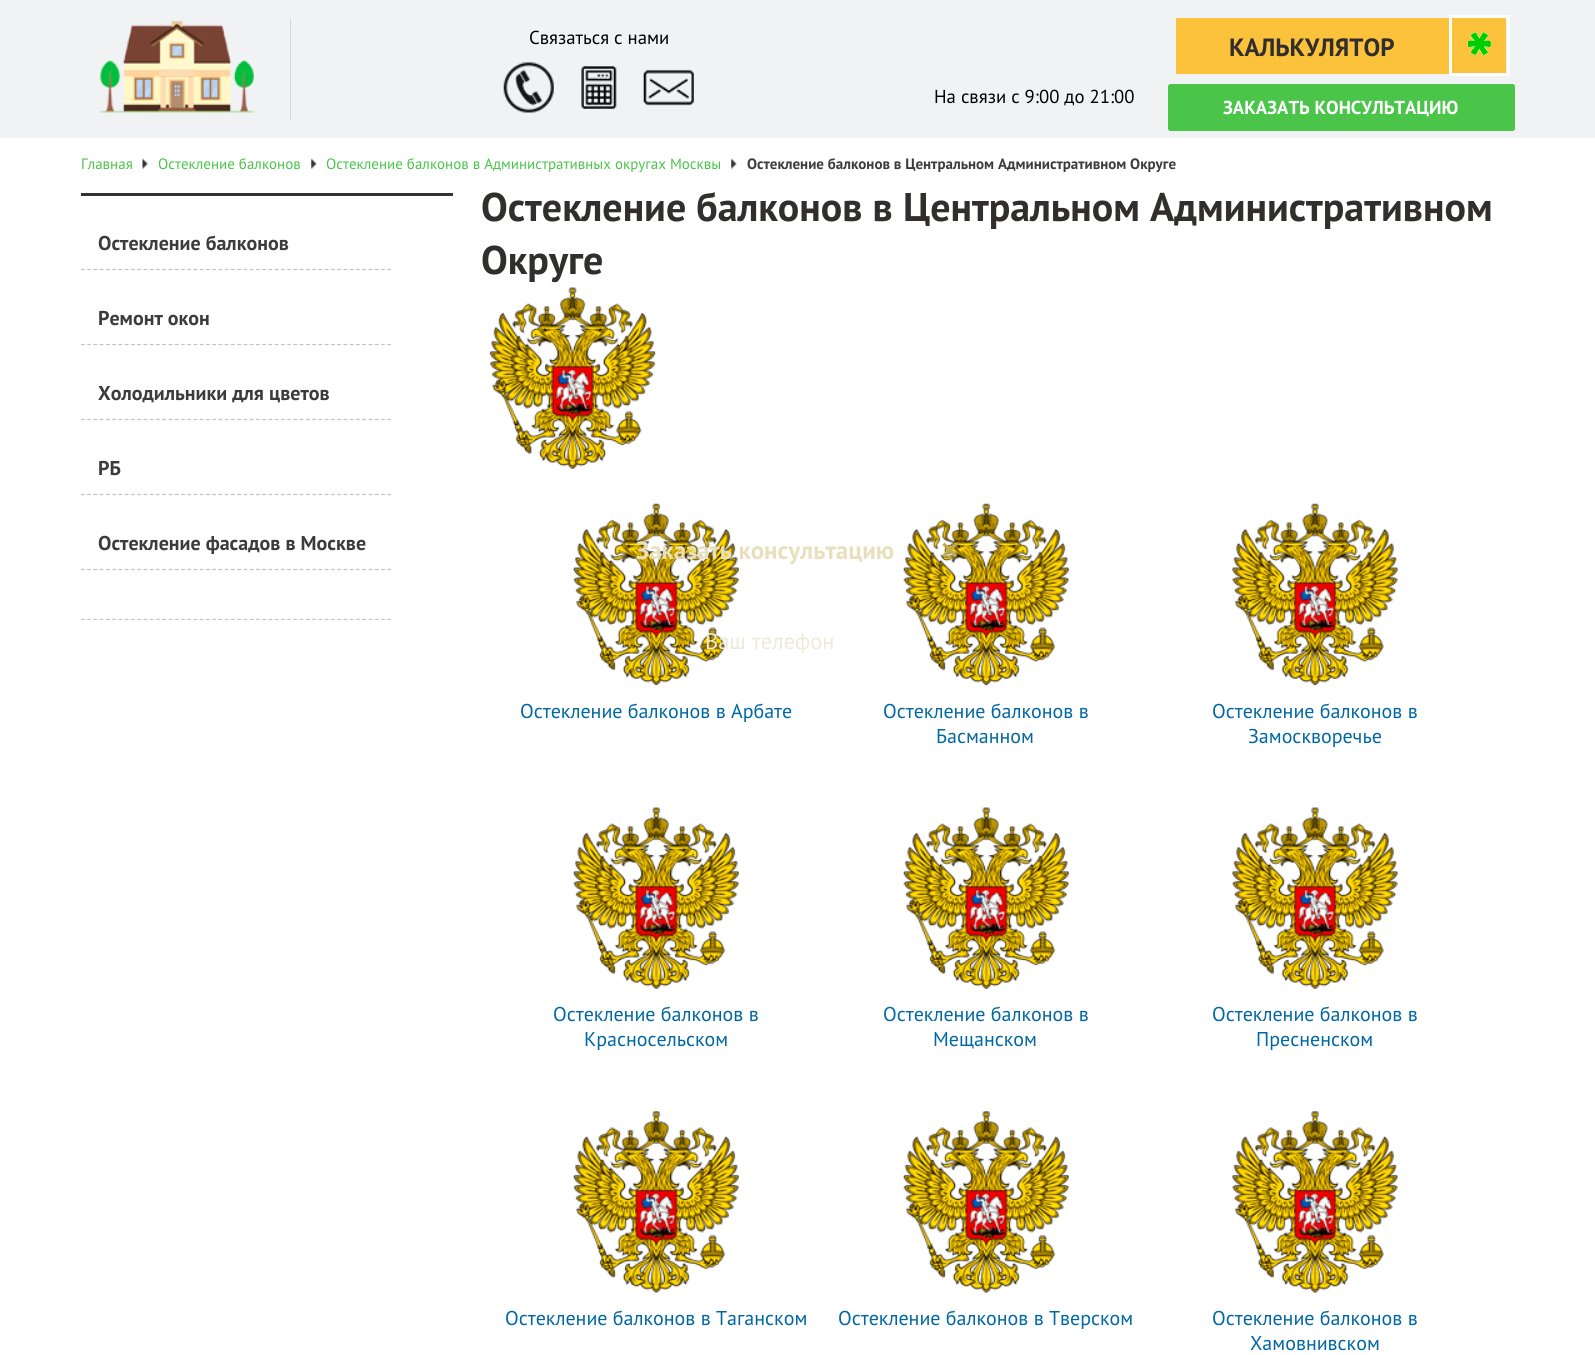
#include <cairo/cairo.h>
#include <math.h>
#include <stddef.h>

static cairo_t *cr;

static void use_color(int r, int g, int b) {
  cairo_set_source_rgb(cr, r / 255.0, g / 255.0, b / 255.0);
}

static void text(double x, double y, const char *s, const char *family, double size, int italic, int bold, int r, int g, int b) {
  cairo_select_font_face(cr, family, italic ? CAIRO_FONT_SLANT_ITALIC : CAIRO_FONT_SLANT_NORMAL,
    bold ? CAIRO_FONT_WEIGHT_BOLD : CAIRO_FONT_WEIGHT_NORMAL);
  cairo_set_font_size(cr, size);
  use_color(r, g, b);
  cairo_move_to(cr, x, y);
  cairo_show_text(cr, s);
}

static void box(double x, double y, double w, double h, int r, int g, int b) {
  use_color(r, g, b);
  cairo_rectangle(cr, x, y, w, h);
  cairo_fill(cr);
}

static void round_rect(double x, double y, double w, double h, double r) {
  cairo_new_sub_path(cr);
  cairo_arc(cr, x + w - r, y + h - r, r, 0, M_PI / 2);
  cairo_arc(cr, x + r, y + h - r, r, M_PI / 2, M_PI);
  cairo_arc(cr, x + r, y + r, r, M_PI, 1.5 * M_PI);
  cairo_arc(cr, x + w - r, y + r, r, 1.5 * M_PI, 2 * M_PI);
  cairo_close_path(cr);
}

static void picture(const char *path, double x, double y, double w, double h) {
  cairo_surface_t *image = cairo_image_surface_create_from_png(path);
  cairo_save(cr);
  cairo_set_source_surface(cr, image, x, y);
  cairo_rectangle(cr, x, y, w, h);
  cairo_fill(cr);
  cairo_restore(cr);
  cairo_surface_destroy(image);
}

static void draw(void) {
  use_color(255, 255, 255);
  cairo_paint(cr);
  box(0, 0, 1595, 138, 241, 242, 244);
  picture("img_01.png", 99, 21, 155, 92);
  box(290, 19, 1, 100, 206, 215, 226);
  picture("img_02.png", 503, 62, 51, 51);
  picture("img_03.png", 581, 66, 36, 43);
  picture("img_04.png", 643, 69, 51, 37);
  box(1176, 18, 330, 56, 253, 194, 60);
  cairo_rectangle(cr, 1450.5, 16.5, 58, 58);
  use_color(255, 255, 255);
  cairo_set_line_width(cr, 3);
  cairo_stroke(cr);
  picture("img_05.png", 1467, 32, 24, 23);
  use_color(74, 197, 74);
  round_rect(1169.5, 85.5, 344, 44, 1);
  cairo_fill_preserve(cr);
  cairo_stroke(cr);
  picture("img_06.png", 142, 158, 6, 11);
  picture("img_07.png", 311, 158, 6, 11);
  picture("img_07.png", 731, 158, 6, 11);
  box(81, 193, 372, 3, 51, 51, 51);
  cairo_new_path(cr);
  cairo_move_to(cr, 81, 269.5);
  cairo_line_to(cr, 391, 269.5);
  use_color(194, 194, 194);
  cairo_set_line_width(cr, 1.2);
  cairo_set_dash(cr, (double[]){3.75, 2.5}, 2, 0);
  cairo_stroke(cr);
  cairo_new_path(cr);
  cairo_move_to(cr, 81, 344.5);
  cairo_line_to(cr, 391, 344.5);
  cairo_stroke(cr);
  cairo_new_path(cr);
  cairo_move_to(cr, 81, 419.5);
  cairo_line_to(cr, 391, 419.5);
  cairo_stroke(cr);
  cairo_new_path(cr);
  cairo_move_to(cr, 81, 494.5);
  cairo_line_to(cr, 391, 494.5);
  cairo_stroke(cr);
  cairo_new_path(cr);
  cairo_move_to(cr, 81, 569.5);
  cairo_line_to(cr, 391, 569.5);
  cairo_stroke(cr);
  cairo_save(cr);
  cairo_rectangle(cr, 81, 195, 372, 425);
  cairo_clip(cr);
  cairo_new_path(cr);
  cairo_move_to(cr, 81, 619.5);
  cairo_line_to(cr, 391, 619.5);
  cairo_stroke(cr);
  cairo_restore(cr);
  picture("img_08.png", 489, 287, 167, 182);
  picture("img_09.png", 573, 503, 166, 182);
  picture("img_10.png", 903, 503, 166, 182);
  picture("img_11.png", 1232, 503, 166, 182);
  picture("img_12.png", 573, 807, 166, 182);
  picture("img_13.png", 903, 807, 166, 182);
  picture("img_14.png", 1232, 807, 166, 182);
  picture("img_15.png", 573, 1111, 166, 182);
  picture("img_16.png", 903, 1111, 166, 182);
  picture("img_17.png", 1232, 1111, 166, 182);
  text(529, 44, "Связаться с нами", "PT Sans", 18.75, 0, 0, 0, 0, 0);
  text(934, 103, "На связи с 9:00 до 21:00", "PT Sans", 18.75, 0, 0, 0, 0, 0);
  text(1229, 56, "КАЛЬКУЛЯТОР", "PT Sans", 25, 0, 1, 49, 46, 46);
  text(1223, 114, "ЗАКАЗАТЬ КОНСУЛЬТАЦИЮ", "PT Sans", 18.75, 0, 1, 255, 255, 255);
  text(81, 169, "Главная", "PT Sans", 15, 0, 0, 74, 197, 74);
  text(158, 169, "Остекление балконов", "PT Sans", 15, 0, 0, 74, 197, 74);
  text(326, 169, "Остекление балконов в Административных округах Москвы", "PT Sans", 15, 0, 0, 74, 197, 74);
  text(747, 169, "Остекление балконов в Центральном Административном Округе", "PT Sans", 15, 0, 1, 60, 60, 60);
  text(98, 250, "Остекление балконов", "PT Sans", 20, 0, 1, 60, 60, 60);
  text(98, 325, "Ремонт окон", "PT Sans", 20, 0, 1, 60, 60, 60);
  text(98, 400, "Холодильники для цветов", "PT Sans", 20, 0, 1, 60, 60, 60);
  text(98, 475, "РБ", "PT Sans", 20, 0, 1, 60, 60, 60);
  text(98, 550, "Остекление фасадов в Москве", "PT Sans", 20, 0, 1, 60, 60, 60);
  text(481, 221, "Остекление балконов в Центральном Административном", "PT Sans", 40, 0, 1, 49, 46, 46);
  text(481, 274, "Округе", "PT Sans", 40, 0, 1, 49, 46, 46);
  text(520, 718, "Остекление балконов в Арбате", "PT Sans", 20, 0, 0, 0, 103, 163);
  text(883, 718, "Остекление балконов в", "PT Sans", 20, 0, 0, 0, 103, 163);
  text(936, 743, "Басманном", "PT Sans", 20, 0, 0, 0, 103, 163);
  text(1212, 718, "Остекление балконов в", "PT Sans", 20, 0, 0, 0, 103, 163);
  text(1248, 743, "Замоскворечье", "PT Sans", 20, 0, 0, 0, 103, 163);
  text(553, 1021, "Остекление балконов в", "PT Sans", 20, 0, 0, 0, 103, 163);
  text(584, 1046, "Красносельском", "PT Sans", 20, 0, 0, 0, 103, 163);
  text(883, 1021, "Остекление балконов в", "PT Sans", 20, 0, 0, 0, 103, 163);
  text(933, 1046, "Мещанском", "PT Sans", 20, 0, 0, 0, 103, 163);
  text(1212, 1021, "Остекление балконов в", "PT Sans", 20, 0, 0, 0, 103, 163);
  text(1256, 1046, "Пресненском", "PT Sans", 20, 0, 0, 0, 103, 163);
  text(505, 1325, "Остекление балконов в Таганском", "PT Sans", 20, 0, 0, 0, 103, 163);
  text(838, 1325, "Остекление балконов в Тверском", "PT Sans", 20, 0, 0, 0, 103, 163);
  text(1212, 1325, "Остекление балконов в", "PT Sans", 20, 0, 0, 0, 103, 163);
  text(1250, 1350, "Хамовнивском", "PT Sans", 20, 0, 0, 0, 103, 163);
  text(636, 559, "Заказать консультацию", "PT Sans", 25, 0, 1, 232, 224, 189);
  text(941, 560, "×", "Liberation Sans", 30, 0, 1, 190, 171, 80);
  text(705, 649, "Ваш телефон", "PT Sans", 22.5, 0, 0, 238, 234, 216);
}

int main(void) {
  cairo_surface_t *surface = cairo_image_surface_create(CAIRO_FORMAT_RGB24, 1595, 1355);
  cr = cairo_create(surface);
  cairo_font_options_t *options = cairo_font_options_create();
  cairo_font_options_set_hint_metrics(options, CAIRO_HINT_METRICS_OFF);
  cairo_font_options_set_hint_style(options, CAIRO_HINT_STYLE_NONE);
  cairo_set_font_options(cr, options);
  cairo_set_miter_limit(cr, 4);
  draw();
  cairo_surface_write_to_png(surface, "out.png");
  cairo_font_options_destroy(options);
  cairo_destroy(cr);
  cairo_surface_destroy(surface);
  return 0;
}
